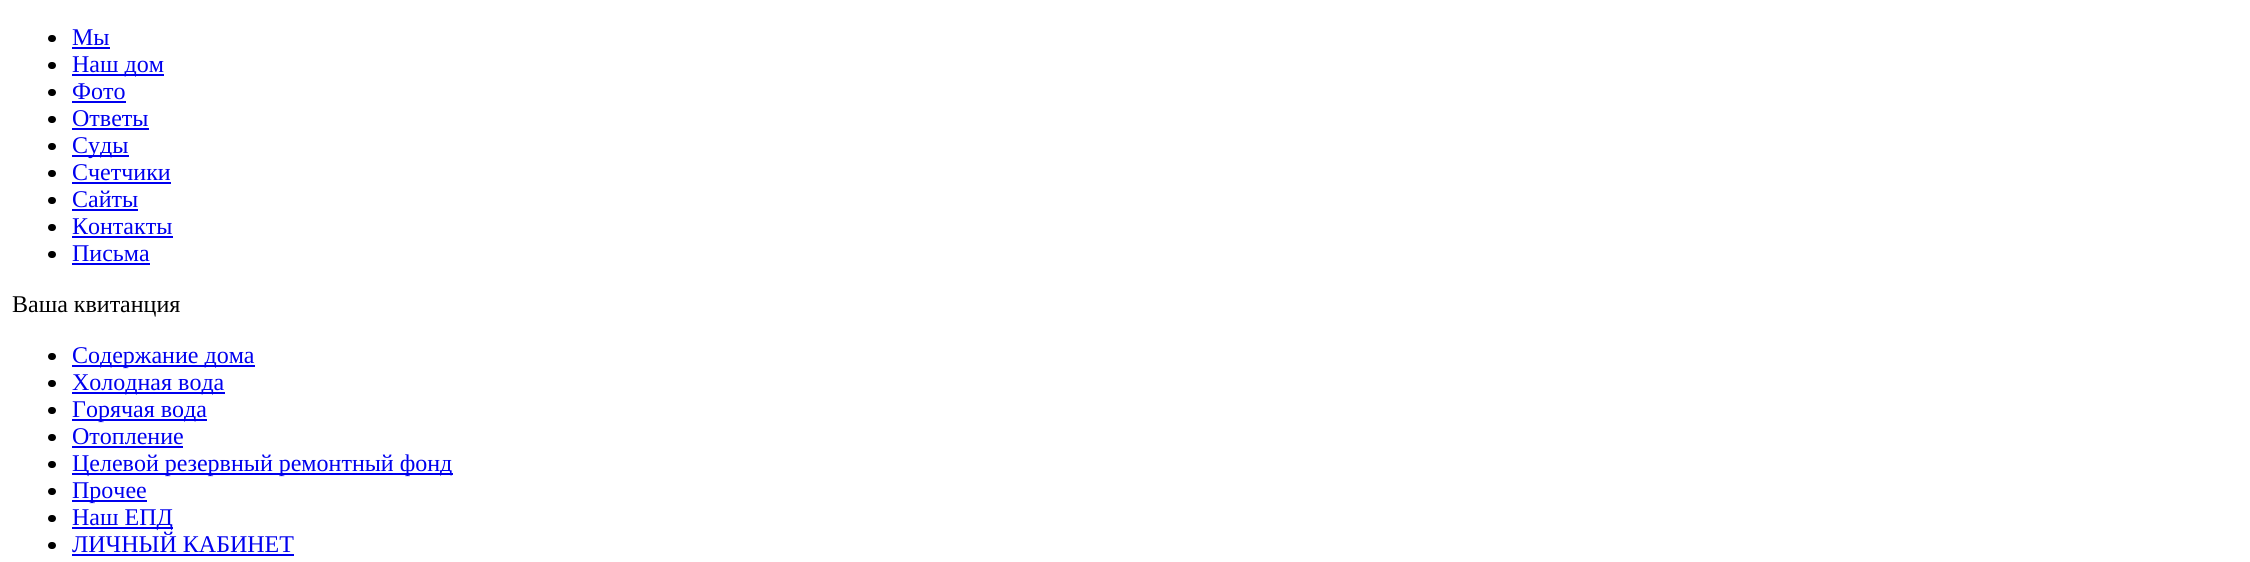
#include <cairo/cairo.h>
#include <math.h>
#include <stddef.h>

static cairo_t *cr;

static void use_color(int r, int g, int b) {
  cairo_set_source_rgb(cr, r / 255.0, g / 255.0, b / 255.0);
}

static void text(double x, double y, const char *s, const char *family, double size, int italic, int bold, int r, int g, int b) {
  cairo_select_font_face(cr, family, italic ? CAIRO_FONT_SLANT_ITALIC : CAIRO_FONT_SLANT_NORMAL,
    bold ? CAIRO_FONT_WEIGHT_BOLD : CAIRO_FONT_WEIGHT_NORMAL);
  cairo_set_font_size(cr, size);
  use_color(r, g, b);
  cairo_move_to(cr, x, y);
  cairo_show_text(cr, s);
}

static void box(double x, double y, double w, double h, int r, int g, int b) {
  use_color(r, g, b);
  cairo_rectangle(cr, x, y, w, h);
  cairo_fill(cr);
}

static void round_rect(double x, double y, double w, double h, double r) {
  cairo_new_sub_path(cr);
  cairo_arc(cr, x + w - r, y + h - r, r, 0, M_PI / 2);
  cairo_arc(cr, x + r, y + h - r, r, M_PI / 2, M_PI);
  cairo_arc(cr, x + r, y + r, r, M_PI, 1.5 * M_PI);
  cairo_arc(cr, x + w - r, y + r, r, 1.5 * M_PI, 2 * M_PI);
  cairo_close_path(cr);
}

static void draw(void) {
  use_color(255, 255, 255);
  cairo_paint(cr);
  use_color(0, 0, 0);
  round_rect(48, 35, 8, 7, 3.5);
  cairo_fill(cr);
  box(72, 47, 38, 2, 0, 0, 238);
  use_color(0, 0, 0);
  round_rect(48, 62, 8, 7, 3.5);
  cairo_fill(cr);
  box(72, 74, 92, 2, 0, 0, 238);
  use_color(0, 0, 0);
  round_rect(48, 89, 8, 7, 3.5);
  cairo_fill(cr);
  box(72, 101, 54, 2, 0, 0, 238);
  use_color(0, 0, 0);
  round_rect(48, 116, 8, 7, 3.5);
  cairo_fill(cr);
  box(72, 128, 77, 2, 0, 0, 238);
  use_color(0, 0, 0);
  round_rect(48, 143, 8, 7, 3.5);
  cairo_fill(cr);
  box(72, 155, 57, 2, 0, 0, 238);
  use_color(0, 0, 0);
  round_rect(48, 170, 8, 7, 3.5);
  cairo_fill(cr);
  box(72, 182, 99, 2, 0, 0, 238);
  use_color(0, 0, 0);
  round_rect(48, 197, 8, 7, 3.5);
  cairo_fill(cr);
  box(72, 209, 66, 2, 0, 0, 238);
  use_color(0, 0, 0);
  round_rect(48, 224, 8, 7, 3.5);
  cairo_fill(cr);
  box(72, 236, 101, 2, 0, 0, 238);
  use_color(0, 0, 0);
  round_rect(48, 251, 8, 7, 3.5);
  cairo_fill(cr);
  box(72, 263, 78, 2, 0, 0, 238);
  use_color(0, 0, 0);
  round_rect(48, 353, 8, 7, 3.5);
  cairo_fill(cr);
  box(72, 365, 183, 2, 0, 0, 238);
  use_color(0, 0, 0);
  round_rect(48, 380, 8, 7, 3.5);
  cairo_fill(cr);
  box(72, 392, 153, 2, 0, 0, 238);
  use_color(0, 0, 0);
  round_rect(48, 407, 8, 7, 3.5);
  cairo_fill(cr);
  box(72, 419, 135, 2, 0, 0, 238);
  use_color(0, 0, 0);
  round_rect(48, 434, 8, 7, 3.5);
  cairo_fill(cr);
  box(72, 446, 111, 2, 0, 0, 238);
  use_color(0, 0, 0);
  round_rect(48, 461, 8, 7, 3.5);
  cairo_fill(cr);
  box(72, 473, 381, 2, 0, 0, 238);
  use_color(0, 0, 0);
  round_rect(48, 488, 8, 7, 3.5);
  cairo_fill(cr);
  box(72, 500, 75, 2, 0, 0, 238);
  use_color(0, 0, 0);
  round_rect(48, 515, 8, 7, 3.5);
  cairo_fill(cr);
  box(72, 527, 101, 2, 0, 0, 238);
  use_color(0, 0, 0);
  round_rect(48, 542, 8, 7, 3.5);
  cairo_fill(cr);
  box(72, 554, 222, 2, 0, 0, 238);
  text(72, 45, "Мы", "Liberation Serif", 24, 0, 0, 0, 0, 238);
  text(72, 72, "Наш дом", "Liberation Serif", 24, 0, 0, 0, 0, 238);
  text(72, 99, "Фото", "Liberation Serif", 24, 0, 0, 0, 0, 238);
  text(72, 126, "Ответы", "Liberation Serif", 24, 0, 0, 0, 0, 238);
  text(72, 153, "Суды", "Liberation Serif", 24, 0, 0, 0, 0, 238);
  text(72, 180, "Счетчики", "Liberation Serif", 24, 0, 0, 0, 0, 238);
  text(72, 207, "Сайты", "Liberation Serif", 24, 0, 0, 0, 0, 238);
  text(72, 234, "Контакты", "Liberation Serif", 24, 0, 0, 0, 0, 238);
  text(72, 261, "Письма", "Liberation Serif", 24, 0, 0, 0, 0, 238);
  text(12, 312, "Ваша квитанция", "Liberation Serif", 24, 0, 0, 0, 0, 0);
  text(72, 363, "Содержание дома", "Liberation Serif", 24, 0, 0, 0, 0, 238);
  text(72, 390, "Холодная вода", "Liberation Serif", 24, 0, 0, 0, 0, 238);
  text(72, 417, "Горячая вода", "Liberation Serif", 24, 0, 0, 0, 0, 238);
  text(72, 444, "Отопление", "Liberation Serif", 24, 0, 0, 0, 0, 238);
  text(72, 471, "Целевой резервный ремонтный фонд", "Liberation Serif", 24, 0, 0, 0, 0, 238);
  text(72, 498, "Прочее", "Liberation Serif", 24, 0, 0, 0, 0, 238);
  text(72, 525, "Наш ЕПД", "Liberation Serif", 24, 0, 0, 0, 0, 238);
  text(72, 552, "ЛИЧНЫЙ КАБИНЕТ", "Liberation Serif", 24, 0, 0, 0, 0, 238);
}

int main(void) {
  cairo_surface_t *surface = cairo_image_surface_create(CAIRO_FORMAT_RGB24, 2250, 562);
  cr = cairo_create(surface);
  cairo_font_options_t *options = cairo_font_options_create();
  cairo_font_options_set_hint_metrics(options, CAIRO_HINT_METRICS_OFF);
  cairo_font_options_set_hint_style(options, CAIRO_HINT_STYLE_NONE);
  cairo_set_font_options(cr, options);
  cairo_set_miter_limit(cr, 4);
  draw();
  cairo_surface_write_to_png(surface, "out.png");
  cairo_font_options_destroy(options);
  cairo_destroy(cr);
  cairo_surface_destroy(surface);
  return 0;
}
